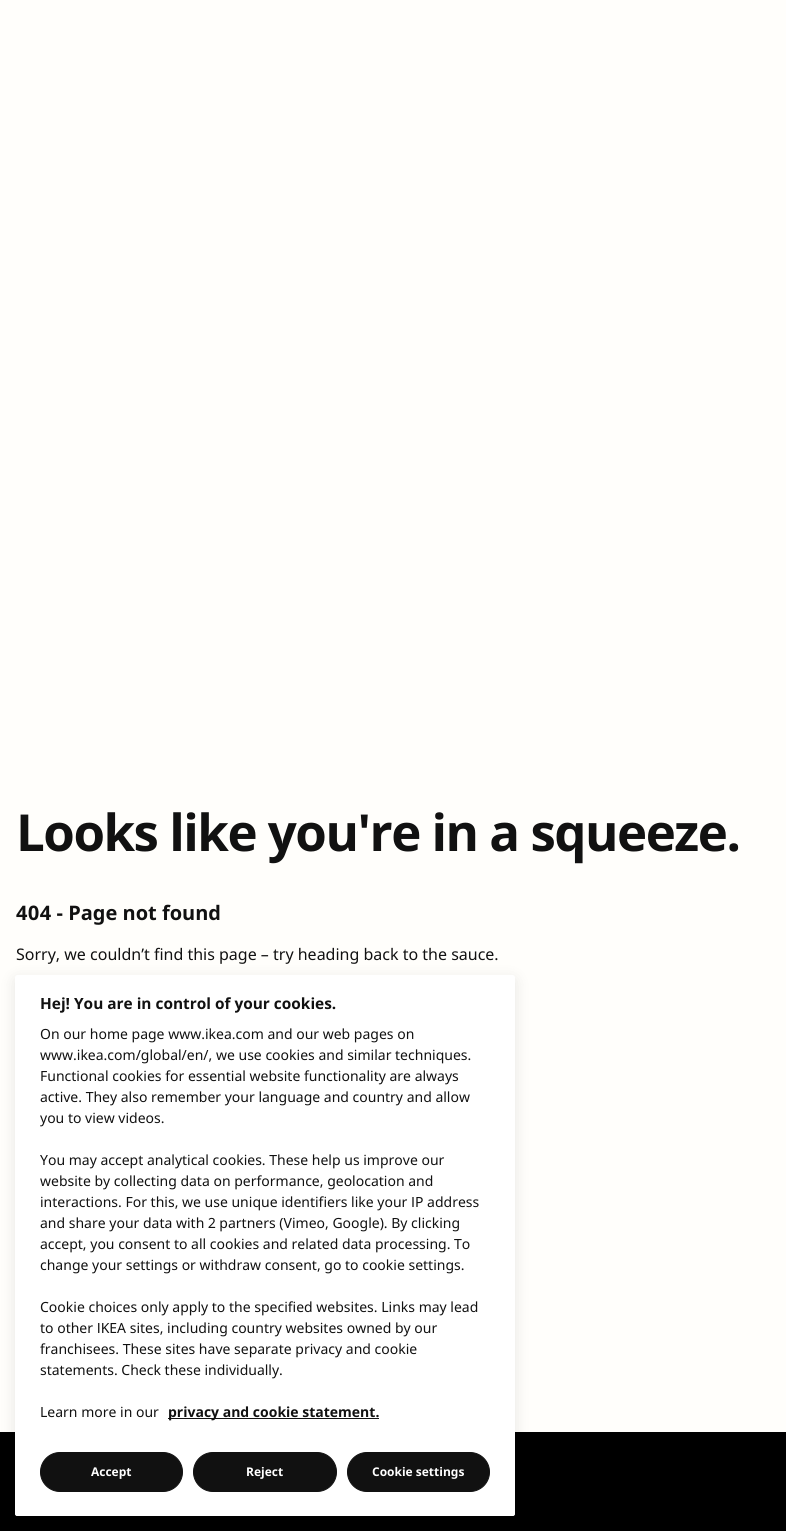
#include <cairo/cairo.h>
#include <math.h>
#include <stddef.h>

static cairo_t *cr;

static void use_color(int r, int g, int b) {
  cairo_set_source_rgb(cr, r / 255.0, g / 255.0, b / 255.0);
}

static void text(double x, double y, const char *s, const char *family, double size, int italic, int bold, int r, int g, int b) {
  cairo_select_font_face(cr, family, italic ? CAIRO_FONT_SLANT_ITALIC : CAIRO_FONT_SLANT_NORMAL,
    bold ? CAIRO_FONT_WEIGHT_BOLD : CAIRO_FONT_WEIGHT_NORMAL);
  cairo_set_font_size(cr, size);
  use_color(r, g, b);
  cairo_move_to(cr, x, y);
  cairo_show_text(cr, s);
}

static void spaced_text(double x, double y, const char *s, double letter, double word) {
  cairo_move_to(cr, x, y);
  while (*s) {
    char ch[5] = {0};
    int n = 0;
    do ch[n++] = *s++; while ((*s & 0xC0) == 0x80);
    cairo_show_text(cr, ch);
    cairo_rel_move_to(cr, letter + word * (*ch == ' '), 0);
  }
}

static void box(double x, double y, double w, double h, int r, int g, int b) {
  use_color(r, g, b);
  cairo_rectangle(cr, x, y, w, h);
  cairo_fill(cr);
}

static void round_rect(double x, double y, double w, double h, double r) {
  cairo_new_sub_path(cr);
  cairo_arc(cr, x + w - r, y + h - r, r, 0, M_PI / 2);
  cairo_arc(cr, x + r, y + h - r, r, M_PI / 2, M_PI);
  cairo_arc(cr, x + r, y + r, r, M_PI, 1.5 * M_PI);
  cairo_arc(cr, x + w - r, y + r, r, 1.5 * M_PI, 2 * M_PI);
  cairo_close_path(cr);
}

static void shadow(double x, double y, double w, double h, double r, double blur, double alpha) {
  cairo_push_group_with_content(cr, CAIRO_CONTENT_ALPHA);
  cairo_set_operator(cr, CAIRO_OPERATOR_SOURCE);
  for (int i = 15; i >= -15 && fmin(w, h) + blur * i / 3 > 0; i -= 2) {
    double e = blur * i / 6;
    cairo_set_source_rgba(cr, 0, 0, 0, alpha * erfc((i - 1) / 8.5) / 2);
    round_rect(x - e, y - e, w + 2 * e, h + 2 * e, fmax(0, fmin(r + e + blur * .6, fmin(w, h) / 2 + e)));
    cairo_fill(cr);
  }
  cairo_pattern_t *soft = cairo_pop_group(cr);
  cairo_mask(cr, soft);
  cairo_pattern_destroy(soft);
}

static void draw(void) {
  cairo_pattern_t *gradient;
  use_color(255, 254, 251);
  cairo_paint(cr);
  box(0, 1432, 786, 99, 0, 0, 0);
  use_color(0, 0, 0);
  shadow(15, 979, 500, 541, 2.5, 7.5, 0.1);
  use_color(255, 255, 255);
  round_rect(15, 975, 500, 541, 2.5);
  cairo_fill(cr);
  box(168, 1418, 211, 1, 17, 17, 17);
  gradient = cairo_pattern_create_linear(265, 1516, 265, 1432);
  cairo_pattern_add_color_stop_rgba(gradient, 0.95, 1, 1, 1, 1);
  cairo_pattern_add_color_stop_rgba(gradient, 1, 1, 1, 1, 0);
  cairo_set_source(cr, gradient);
  cairo_pattern_destroy(gradient);
  cairo_new_path(cr);
  cairo_move_to(cr, 15, 1432);
  cairo_line_to(cr, 515, 1432);
  cairo_line_to(cr, 515, 1513.5);
  cairo_curve_to(cr, 515, 1515, 514, 1516, 512.5, 1516);
  cairo_line_to(cr, 17.5, 1516);
  cairo_curve_to(cr, 16, 1516, 15, 1515, 15, 1513.5);
  cairo_close_path(cr);
  cairo_fill(cr);
  use_color(17, 17, 17);
  round_rect(40.5, 1452.5, 142, 39, 19.5);
  cairo_fill_preserve(cr);
  cairo_set_line_width(cr, 1);
  cairo_stroke(cr);
  round_rect(193.5, 1452.5, 143, 39, 19.5);
  cairo_fill_preserve(cr);
  cairo_stroke(cr);
  round_rect(347.5, 1452.5, 142, 39, 19.5);
  cairo_fill_preserve(cr);
  cairo_stroke(cr);
  cairo_select_font_face(cr, "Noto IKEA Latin", CAIRO_FONT_SLANT_NORMAL, CAIRO_FONT_WEIGHT_BOLD);
  cairo_set_font_size(cr, 51);
  spaced_text(16, 851, "Looks like you're in a squeeze.", -1.5, 0);
  text(16, 920, "404 - Page not found", "Noto IKEA Latin", 20, 0, 1, 17, 17, 17);
  text(16, 960, "Sorry, we couldn’t find this page – try heading back to the sauce.", "Noto IKEA Latin", 16, 0, 0, 17, 17, 17);
  text(40, 1009, "Hej! You are in control of your cookies.", "Noto IKEA Latin", 15.4, 0, 1, 17, 17, 17);
  text(40, 1039, "On our home page www.ikea.com and our web pages on", "Noto IKEA Latin", 14, 0, 0, 17, 17, 17);
  text(40, 1060, "www.ikea.com/global/en/, we use cookies and similar techniques.", "Noto IKEA Latin", 14, 0, 0, 17, 17, 17);
  text(40, 1081, "Functional cookies for essential website functionality are always", "Noto IKEA Latin", 14, 0, 0, 17, 17, 17);
  text(40, 1102, "active. They also remember your language and country and allow", "Noto IKEA Latin", 14, 0, 0, 17, 17, 17);
  text(40, 1123, "you to view videos.", "Noto IKEA Latin", 14, 0, 0, 17, 17, 17);
  text(40, 1165, "You may accept analytical cookies. These help us improve our", "Noto IKEA Latin", 14, 0, 0, 17, 17, 17);
  text(40, 1186, "website by collecting data on performance, geolocation and", "Noto IKEA Latin", 14, 0, 0, 17, 17, 17);
  text(40, 1207, "interactions. For this, we use unique identifiers like your IP address", "Noto IKEA Latin", 14, 0, 0, 17, 17, 17);
  text(40, 1228, "and share your data with 2 partners (Vimeo, Google). By clicking", "Noto IKEA Latin", 14, 0, 0, 17, 17, 17);
  text(40, 1249, "accept, you consent to all cookies and related data processing. To", "Noto IKEA Latin", 14, 0, 0, 17, 17, 17);
  text(40, 1270, "change your settings or withdraw consent, go to cookie settings.", "Noto IKEA Latin", 14, 0, 0, 17, 17, 17);
  text(40, 1312, "Cookie choices only apply to the specified websites. Links may lead", "Noto IKEA Latin", 14, 0, 0, 17, 17, 17);
  text(40, 1333, "to other IKEA sites, including country websites owned by our", "Noto IKEA Latin", 14, 0, 0, 17, 17, 17);
  text(40, 1354, "franchisees. These sites have separate privacy and cookie", "Noto IKEA Latin", 14, 0, 0, 17, 17, 17);
  text(40, 1375, "statements. Check these individually.", "Noto IKEA Latin", 14, 0, 0, 17, 17, 17);
  text(40, 1417, "Learn more in our", "Noto IKEA Latin", 14, 0, 0, 17, 17, 17);
  text(168, 1417, "privacy and cookie statement.", "Noto IKEA Latin", 14, 0, 1, 17, 17, 17);
  text(91, 1476, "Accept", "Noto IKEA Latin", 12, 0, 1, 255, 255, 255);
  text(246, 1476, "Reject", "Noto IKEA Latin", 12, 0, 1, 255, 255, 255);
  text(372, 1476, "Cookie settings", "Noto IKEA Latin", 12, 0, 1, 255, 255, 255);
}

int main(void) {
  cairo_surface_t *surface = cairo_image_surface_create(CAIRO_FORMAT_RGB24, 786, 1531);
  cr = cairo_create(surface);
  cairo_font_options_t *options = cairo_font_options_create();
  cairo_font_options_set_hint_metrics(options, CAIRO_HINT_METRICS_OFF);
  cairo_font_options_set_hint_style(options, CAIRO_HINT_STYLE_NONE);
  cairo_set_font_options(cr, options);
  cairo_set_miter_limit(cr, 4);
  draw();
  cairo_surface_write_to_png(surface, "out.png");
  cairo_font_options_destroy(options);
  cairo_destroy(cr);
  cairo_surface_destroy(surface);
  return 0;
}
